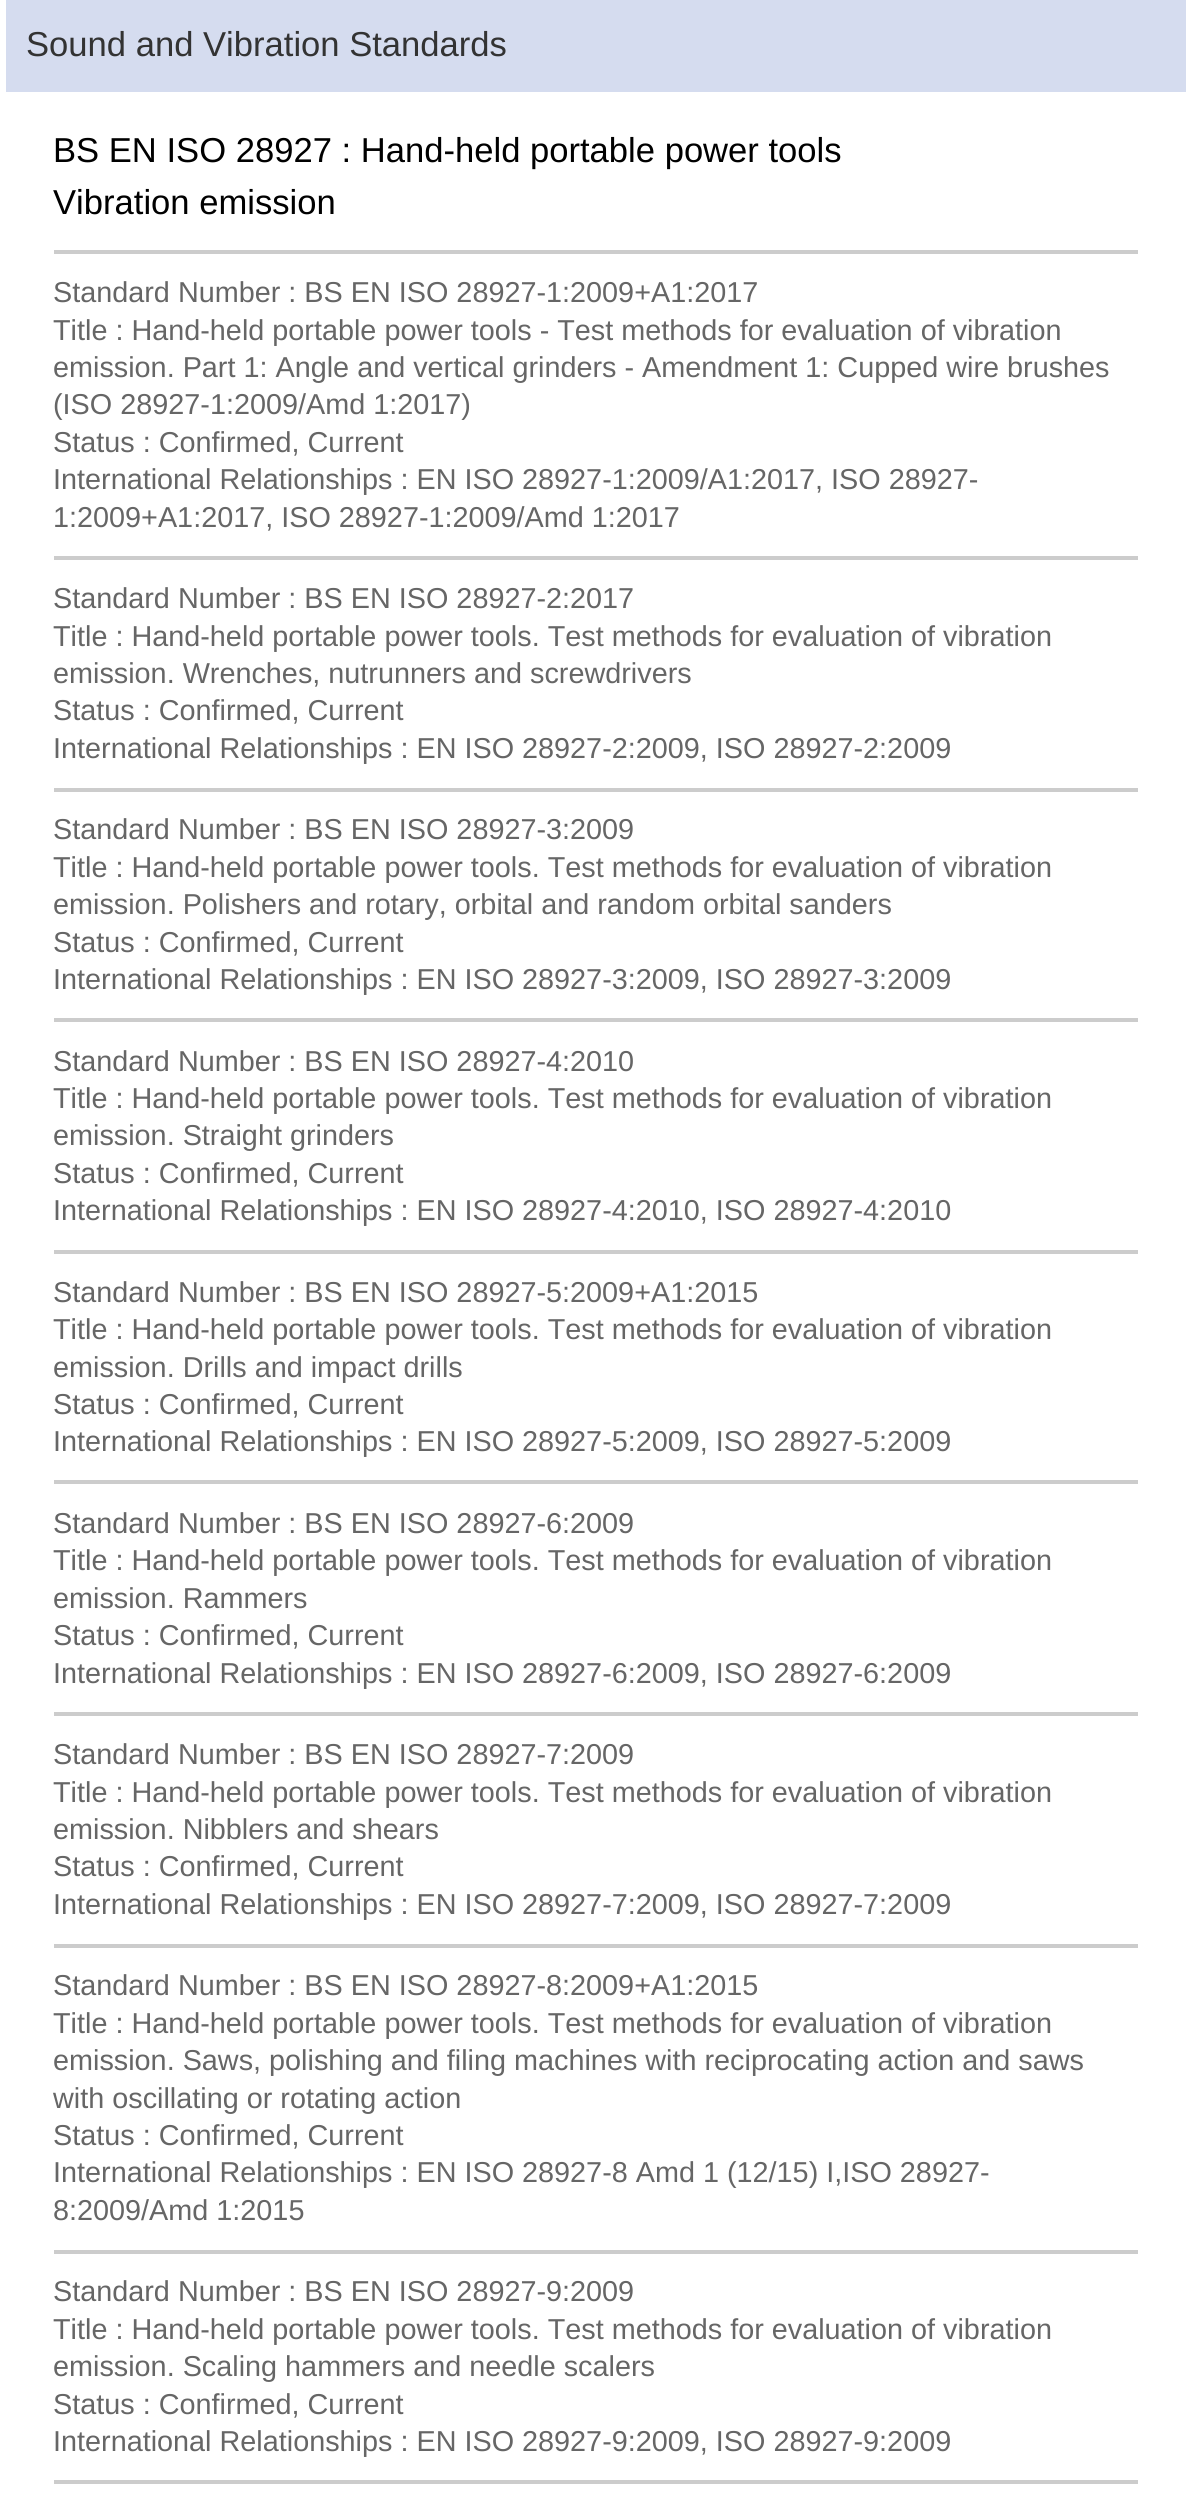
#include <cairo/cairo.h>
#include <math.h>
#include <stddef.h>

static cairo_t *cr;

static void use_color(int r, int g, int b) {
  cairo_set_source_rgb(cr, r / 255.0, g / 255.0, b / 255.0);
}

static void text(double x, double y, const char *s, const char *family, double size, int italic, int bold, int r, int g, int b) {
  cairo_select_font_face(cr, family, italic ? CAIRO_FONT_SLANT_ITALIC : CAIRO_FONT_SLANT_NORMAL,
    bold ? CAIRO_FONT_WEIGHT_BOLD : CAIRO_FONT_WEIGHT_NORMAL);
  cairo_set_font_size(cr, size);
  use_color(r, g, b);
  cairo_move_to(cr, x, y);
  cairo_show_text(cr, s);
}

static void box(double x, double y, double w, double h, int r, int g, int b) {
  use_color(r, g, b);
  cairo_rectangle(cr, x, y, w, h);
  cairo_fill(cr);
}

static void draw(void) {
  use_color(255, 255, 255);
  cairo_paint(cr);
  box(6, 0, 1180, 92, 213, 220, 239);
  box(54, 250, 1084, 4, 204, 204, 204);
  box(54, 556, 1084, 4, 204, 204, 204);
  box(54, 788, 1084, 4, 204, 204, 204);
  box(54, 1018, 1084, 4, 204, 204, 204);
  box(54, 1250, 1084, 4, 204, 204, 204);
  box(54, 1480, 1084, 4, 204, 204, 204);
  box(54, 1712, 1084, 4, 204, 204, 204);
  box(54, 1944, 1084, 4, 204, 204, 204);
  box(54, 2250, 1084, 4, 204, 204, 204);
  box(54, 2480, 1084, 4, 204, 204, 204);
  text(26, 56, "Sound and Vibration Standards", "Liberation Sans", 34.6, 0, 0, 51, 51, 51);
  text(53, 162, "BS EN ISO 28927 : Hand-held portable power tools", "Liberation Sans", 34.6, 0, 0, 0, 0, 0);
  text(53, 214, "Vibration emission", "Liberation Sans", 34.6, 0, 0, 0, 0, 0);
  text(53, 302, "Standard Number : BS EN ISO 28927-1:2009+A1:2017", "Liberation Sans", 28.8, 0, 0, 102, 102, 102);
  text(53, 340, "Title : Hand-held portable power tools - Test methods for evaluation of vibration", "Liberation Sans", 28.8, 0, 0, 102, 102, 102);
  text(53, 377, "emission. Part 1: Angle and vertical grinders - Amendment 1: Cupped wire brushes", "Liberation Sans", 28.8, 0, 0, 102, 102, 102);
  text(53, 414, "(ISO 28927-1:2009/Amd 1:2017)", "Liberation Sans", 28.8, 0, 0, 102, 102, 102);
  text(53, 452, "Status : Confirmed, Current", "Liberation Sans", 28.8, 0, 0, 102, 102, 102);
  text(53, 489, "International Relationships : EN ISO 28927-1:2009/A1:2017, ISO 28927-", "Liberation Sans", 28.8, 0, 0, 102, 102, 102);
  text(53, 527, "1:2009+A1:2017, ISO 28927-1:2009/Amd 1:2017", "Liberation Sans", 28.8, 0, 0, 102, 102, 102);
  text(53, 608, "Standard Number : BS EN ISO 28927-2:2017", "Liberation Sans", 28.8, 0, 0, 102, 102, 102);
  text(53, 646, "Title : Hand-held portable power tools. Test methods for evaluation of vibration", "Liberation Sans", 28.8, 0, 0, 102, 102, 102);
  text(53, 683, "emission. Wrenches, nutrunners and screwdrivers", "Liberation Sans", 28.8, 0, 0, 102, 102, 102);
  text(53, 720, "Status : Confirmed, Current", "Liberation Sans", 28.8, 0, 0, 102, 102, 102);
  text(53, 758, "International Relationships : EN ISO 28927-2:2009, ISO 28927-2:2009", "Liberation Sans", 28.8, 0, 0, 102, 102, 102);
  text(53, 839, "Standard Number : BS EN ISO 28927-3:2009", "Liberation Sans", 28.8, 0, 0, 102, 102, 102);
  text(53, 877, "Title : Hand-held portable power tools. Test methods for evaluation of vibration", "Liberation Sans", 28.8, 0, 0, 102, 102, 102);
  text(53, 914, "emission. Polishers and rotary, orbital and random orbital sanders", "Liberation Sans", 28.8, 0, 0, 102, 102, 102);
  text(53, 952, "Status : Confirmed, Current", "Liberation Sans", 28.8, 0, 0, 102, 102, 102);
  text(53, 989, "International Relationships : EN ISO 28927-3:2009, ISO 28927-3:2009", "Liberation Sans", 28.8, 0, 0, 102, 102, 102);
  text(53, 1071, "Standard Number : BS EN ISO 28927-4:2010", "Liberation Sans", 28.8, 0, 0, 102, 102, 102);
  text(53, 1108, "Title : Hand-held portable power tools. Test methods for evaluation of vibration", "Liberation Sans", 28.8, 0, 0, 102, 102, 102);
  text(53, 1145, "emission. Straight grinders", "Liberation Sans", 28.8, 0, 0, 102, 102, 102);
  text(53, 1183, "Status : Confirmed, Current", "Liberation Sans", 28.8, 0, 0, 102, 102, 102);
  text(53, 1220, "International Relationships : EN ISO 28927-4:2010, ISO 28927-4:2010", "Liberation Sans", 28.8, 0, 0, 102, 102, 102);
  text(53, 1302, "Standard Number : BS EN ISO 28927-5:2009+A1:2015", "Liberation Sans", 28.8, 0, 0, 102, 102, 102);
  text(53, 1339, "Title : Hand-held portable power tools. Test methods for evaluation of vibration", "Liberation Sans", 28.8, 0, 0, 102, 102, 102);
  text(53, 1377, "emission. Drills and impact drills", "Liberation Sans", 28.8, 0, 0, 102, 102, 102);
  text(53, 1414, "Status : Confirmed, Current", "Liberation Sans", 28.8, 0, 0, 102, 102, 102);
  text(53, 1451, "International Relationships : EN ISO 28927-5:2009, ISO 28927-5:2009", "Liberation Sans", 28.8, 0, 0, 102, 102, 102);
  text(53, 1533, "Standard Number : BS EN ISO 28927-6:2009", "Liberation Sans", 28.8, 0, 0, 102, 102, 102);
  text(53, 1570, "Title : Hand-held portable power tools. Test methods for evaluation of vibration", "Liberation Sans", 28.8, 0, 0, 102, 102, 102);
  text(53, 1608, "emission. Rammers", "Liberation Sans", 28.8, 0, 0, 102, 102, 102);
  text(53, 1645, "Status : Confirmed, Current", "Liberation Sans", 28.8, 0, 0, 102, 102, 102);
  text(53, 1683, "International Relationships : EN ISO 28927-6:2009, ISO 28927-6:2009", "Liberation Sans", 28.8, 0, 0, 102, 102, 102);
  text(53, 1764, "Standard Number : BS EN ISO 28927-7:2009", "Liberation Sans", 28.8, 0, 0, 102, 102, 102);
  text(53, 1802, "Title : Hand-held portable power tools. Test methods for evaluation of vibration", "Liberation Sans", 28.8, 0, 0, 102, 102, 102);
  text(53, 1839, "emission. Nibblers and shears", "Liberation Sans", 28.8, 0, 0, 102, 102, 102);
  text(53, 1876, "Status : Confirmed, Current", "Liberation Sans", 28.8, 0, 0, 102, 102, 102);
  text(53, 1914, "International Relationships : EN ISO 28927-7:2009, ISO 28927-7:2009", "Liberation Sans", 28.8, 0, 0, 102, 102, 102);
  text(53, 1995, "Standard Number : BS EN ISO 28927-8:2009+A1:2015", "Liberation Sans", 28.8, 0, 0, 102, 102, 102);
  text(53, 2033, "Title : Hand-held portable power tools. Test methods for evaluation of vibration", "Liberation Sans", 28.8, 0, 0, 102, 102, 102);
  text(53, 2070, "emission. Saws, polishing and filing machines with reciprocating action and saws", "Liberation Sans", 28.8, 0, 0, 102, 102, 102);
  text(53, 2108, "with oscillating or rotating action", "Liberation Sans", 28.8, 0, 0, 102, 102, 102);
  text(53, 2145, "Status : Confirmed, Current", "Liberation Sans", 28.8, 0, 0, 102, 102, 102);
  text(53, 2182, "International Relationships : EN ISO 28927-8 Amd 1 (12/15) I,ISO 28927-", "Liberation Sans", 28.8, 0, 0, 102, 102, 102);
  text(53, 2220, "8:2009/Amd 1:2015", "Liberation Sans", 28.8, 0, 0, 102, 102, 102);
  text(53, 2301, "Standard Number : BS EN ISO 28927-9:2009", "Liberation Sans", 28.8, 0, 0, 102, 102, 102);
  text(53, 2339, "Title : Hand-held portable power tools. Test methods for evaluation of vibration", "Liberation Sans", 28.8, 0, 0, 102, 102, 102);
  text(53, 2376, "emission. Scaling hammers and needle scalers", "Liberation Sans", 28.8, 0, 0, 102, 102, 102);
  text(53, 2414, "Status : Confirmed, Current", "Liberation Sans", 28.8, 0, 0, 102, 102, 102);
  text(53, 2451, "International Relationships : EN ISO 28927-9:2009, ISO 28927-9:2009", "Liberation Sans", 28.8, 0, 0, 102, 102, 102);
}

int main(void) {
  cairo_surface_t *surface = cairo_image_surface_create(CAIRO_FORMAT_RGB24, 1192, 2500);
  cr = cairo_create(surface);
  cairo_font_options_t *options = cairo_font_options_create();
  cairo_font_options_set_hint_metrics(options, CAIRO_HINT_METRICS_OFF);
  cairo_font_options_set_hint_style(options, CAIRO_HINT_STYLE_NONE);
  cairo_set_font_options(cr, options);
  cairo_set_miter_limit(cr, 4);
  draw();
  cairo_surface_write_to_png(surface, "out.png");
  cairo_font_options_destroy(options);
  cairo_destroy(cr);
  cairo_surface_destroy(surface);
  return 0;
}
